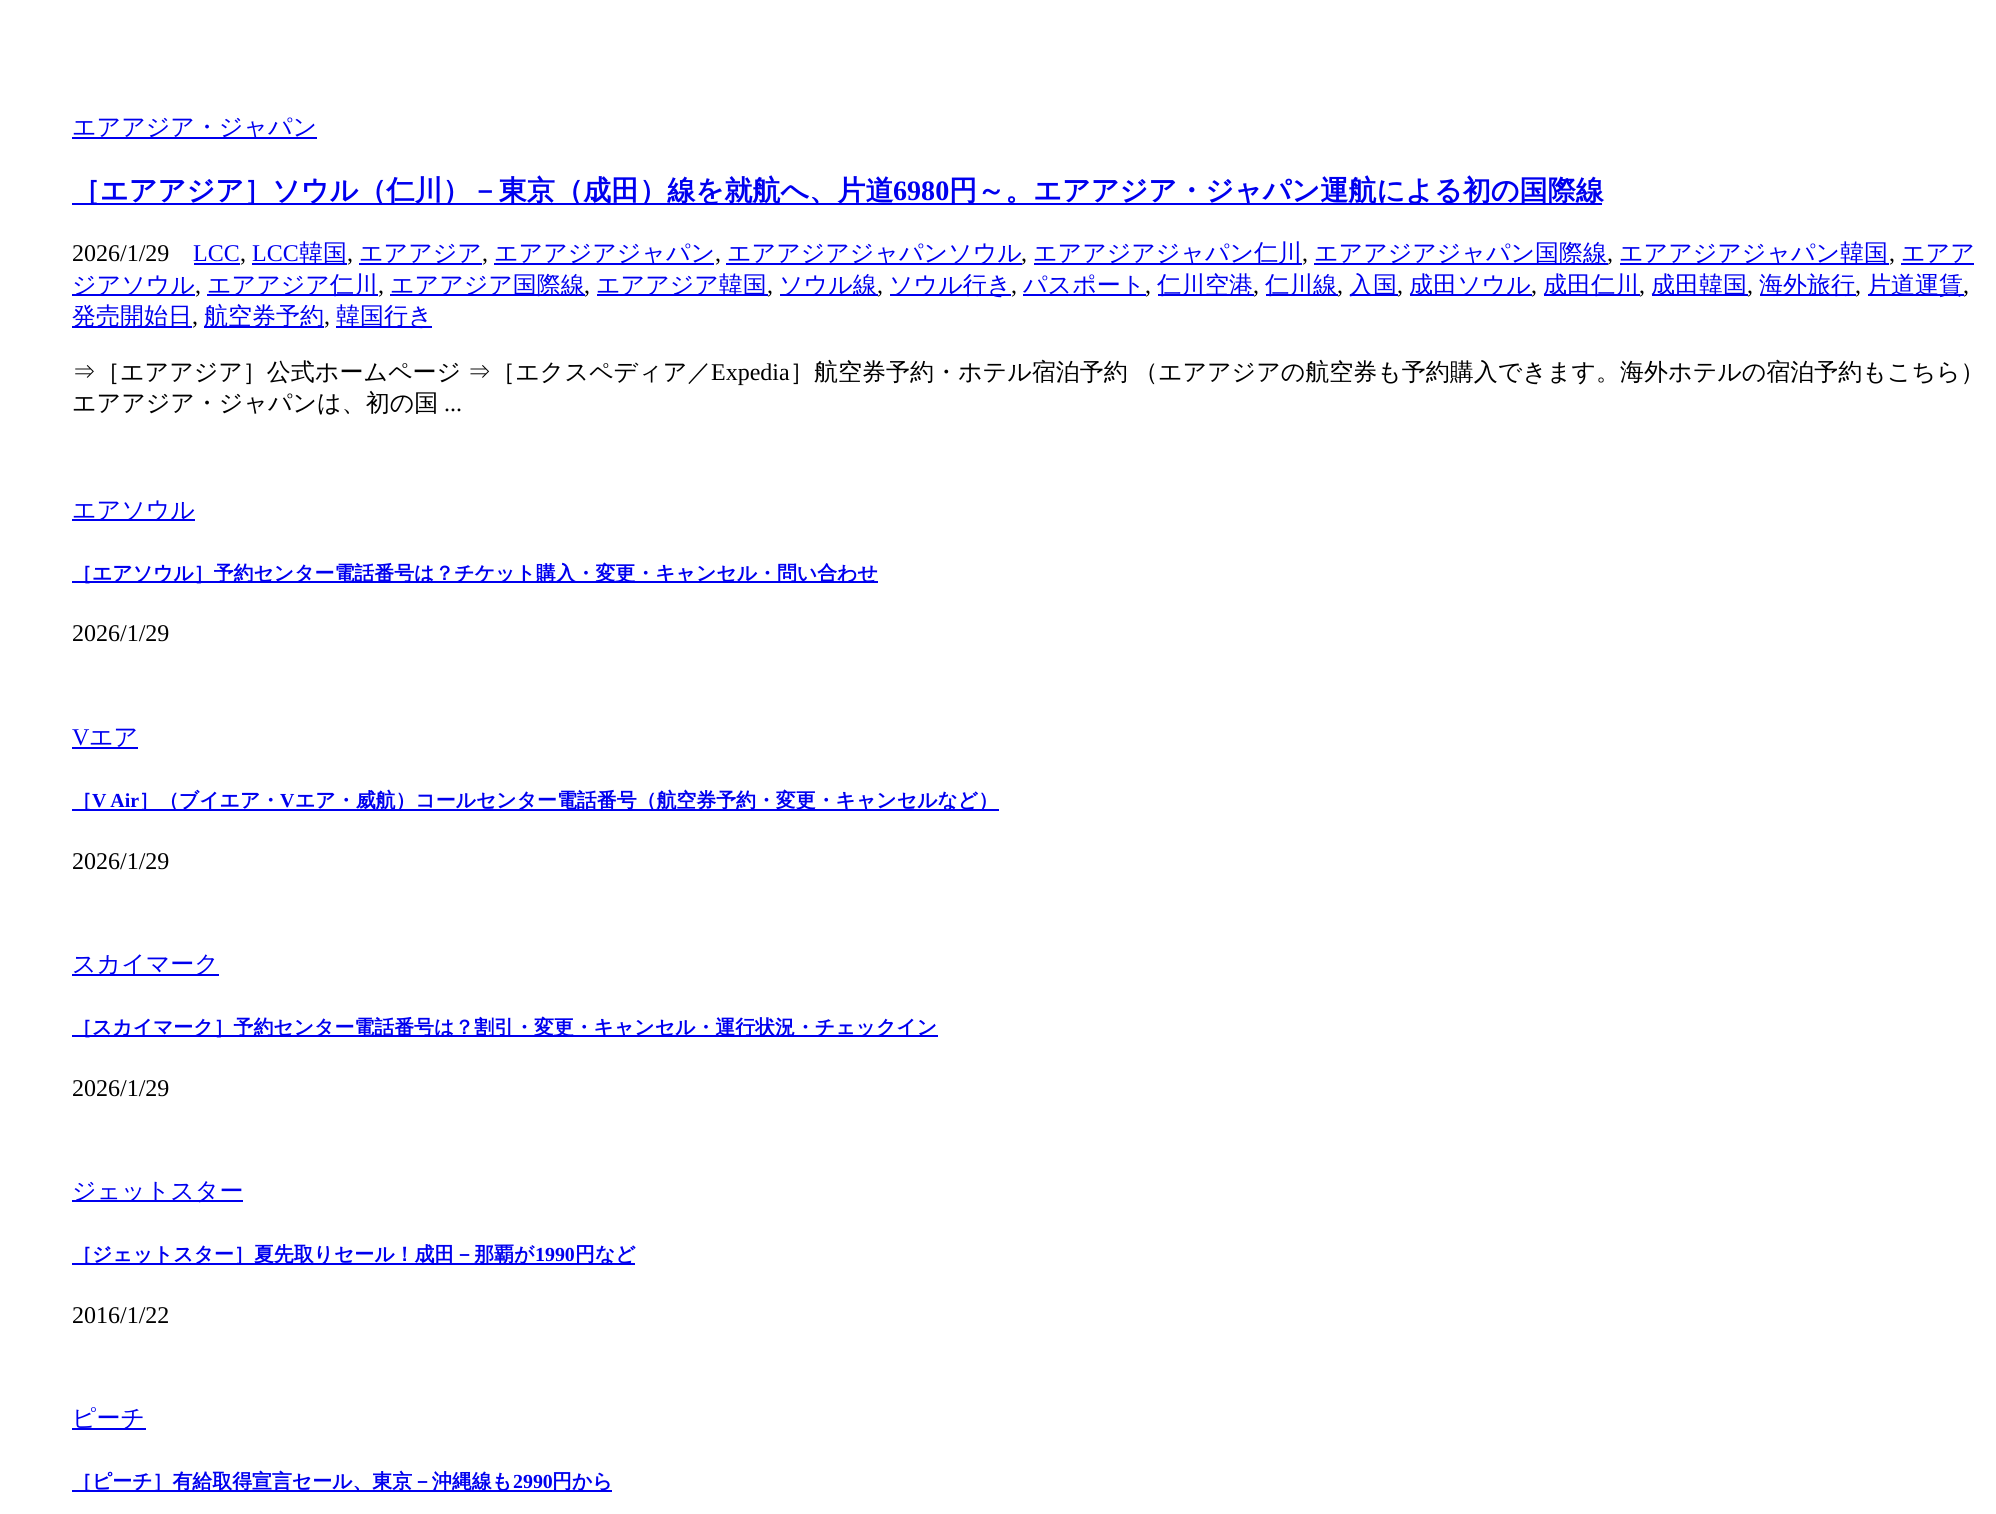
#include <cairo/cairo.h>
#include <math.h>
#include <stddef.h>

static cairo_t *cr;

static void use_color(int r, int g, int b) {
  cairo_set_source_rgb(cr, r / 255.0, g / 255.0, b / 255.0);
}

static void text(double x, double y, const char *s, const char *family, double size, int italic, int bold, int r, int g, int b) {
  cairo_select_font_face(cr, family, italic ? CAIRO_FONT_SLANT_ITALIC : CAIRO_FONT_SLANT_NORMAL,
    bold ? CAIRO_FONT_WEIGHT_BOLD : CAIRO_FONT_WEIGHT_NORMAL);
  cairo_set_font_size(cr, size);
  use_color(r, g, b);
  cairo_move_to(cr, x, y);
  cairo_show_text(cr, s);
}

static void spaced_text(double x, double y, const char *s, double letter, double word) {
  cairo_move_to(cr, x, y);
  while (*s) {
    char ch[5] = {0};
    int n = 0;
    do ch[n++] = *s++; while ((*s & 0xC0) == 0x80);
    cairo_show_text(cr, ch);
    cairo_rel_move_to(cr, letter + word * (*ch == ' '), 0);
  }
}

static void box(double x, double y, double w, double h, int r, int g, int b) {
  use_color(r, g, b);
  cairo_rectangle(cr, x, y, w, h);
  cairo_fill(cr);
}

static void draw(void) {
  use_color(255, 255, 255);
  cairo_paint(cr);
  box(72, 137, 245, 2, 0, 0, 238);
  box(72, 203, 1530, 2, 0, 0, 238);
  box(194, 263, 46, 2, 0, 0, 238);
  box(252, 263, 95, 2, 0, 0, 238);
  box(359, 263, 123, 2, 0, 0, 238);
  box(494, 263, 220, 2, 0, 0, 238);
  box(726, 263, 296, 2, 0, 0, 238);
  box(1034, 263, 268, 2, 0, 0, 238);
  box(1314, 263, 294, 2, 0, 0, 238);
  box(1620, 263, 269, 2, 0, 0, 238);
  box(1901, 263, 73, 2, 0, 0, 238);
  box(72, 294, 123, 2, 0, 0, 238);
  box(207, 294, 171, 2, 0, 0, 238);
  box(390, 294, 195, 2, 0, 0, 238);
  box(597, 294, 171, 2, 0, 0, 238);
  box(780, 294, 98, 2, 0, 0, 238);
  box(890, 294, 121, 2, 0, 0, 238);
  box(1023, 294, 123, 2, 0, 0, 238);
  box(1158, 294, 96, 2, 0, 0, 238);
  box(1266, 294, 72, 2, 0, 0, 238);
  box(1350, 294, 48, 2, 0, 0, 238);
  box(1410, 294, 122, 2, 0, 0, 238);
  box(1544, 294, 96, 2, 0, 0, 238);
  box(1652, 294, 96, 2, 0, 0, 238);
  box(1760, 294, 96, 2, 0, 0, 238);
  box(1868, 294, 96, 2, 0, 0, 238);
  box(72, 326, 120, 2, 0, 0, 238);
  box(204, 326, 120, 2, 0, 0, 238);
  box(336, 326, 96, 2, 0, 0, 238);
  box(72, 519, 123, 2, 0, 0, 238);
  box(72, 581, 806, 2, 0, 0, 238);
  box(72, 747, 66, 2, 0, 0, 238);
  box(72, 809, 927, 2, 0, 0, 238);
  box(72, 974, 147, 2, 0, 0, 238);
  box(72, 1035, 866, 2, 0, 0, 238);
  box(72, 1200, 171, 2, 0, 0, 238);
  box(72, 1263, 563, 2, 0, 0, 238);
  box(72, 1428, 74, 2, 0, 0, 238);
  box(72, 1490, 540, 2, 0, 0, 238);
  text(72, 135, "エアアジア・ジャパン", "WenQuanYi Zen Hei Medium", 24, 0, 0, 0, 0, 238);
  text(72, 200, "［エアアジア］ソウル（仁川）－東京（成田）線を就航へ、片道", "WenQuanYi Zen Hei", 28.1, 0, 1, 0, 0, 238);
  text(893, 200, "6980", "Liberation Serif", 28.1, 0, 1, 0, 0, 238);
  text(949, 200, "円～。エアアジア・ジャパン運航による初の国際線", "WenQuanYi Zen Hei", 28.1, 0, 1, 0, 0, 238);
  text(72, 261, "2026/1/29", "Liberation Serif", 24, 0, 0, 0, 0, 0);
  text(193, 261, "LCC", "Liberation Serif", 24, 0, 0, 0, 0, 238);
  text(240, 261, ",", "Liberation Serif", 24, 0, 0, 0, 0, 0);
  text(252, 261, "LCC", "Liberation Serif", 24, 0, 0, 0, 0, 238);
  text(299, 261, "韓国", "WenQuanYi Zen Hei Medium", 24, 0, 0, 0, 0, 238);
  text(347, 261, ",", "Liberation Serif", 24, 0, 0, 0, 0, 0);
  text(359, 261, "エアアジア", "WenQuanYi Zen Hei Medium", 24, 0, 0, 0, 0, 238);
  text(482, 261, ",", "Liberation Serif", 24, 0, 0, 0, 0, 0);
  text(494, 261, "エアアジアジャパン", "WenQuanYi Zen Hei Medium", 24, 0, 0, 0, 0, 238);
  text(715, 261, ",", "Liberation Serif", 24, 0, 0, 0, 0, 0);
  text(727, 261, "エアアジアジャパンソウル", "WenQuanYi Zen Hei Medium", 24, 0, 0, 0, 0, 238);
  text(1021, 261, ",", "Liberation Serif", 24, 0, 0, 0, 0, 0);
  text(1033, 261, "エアアジアジャパン仁川", "WenQuanYi Zen Hei Medium", 24, 0, 0, 0, 0, 238);
  text(1302, 261, ",", "Liberation Serif", 24, 0, 0, 0, 0, 0);
  text(1314, 261, "エアアジアジャパン国際線", "WenQuanYi Zen Hei Medium", 24, 0, 0, 0, 0, 238);
  text(1607, 261, ",", "Liberation Serif", 24, 0, 0, 0, 0, 0);
  text(1619, 261, "エアアジアジャパン韓国", "WenQuanYi Zen Hei Medium", 24, 0, 0, 0, 0, 238);
  text(1889, 261, ",", "Liberation Serif", 24, 0, 0, 0, 0, 0);
  text(1901, 261, "エアア", "WenQuanYi Zen Hei Medium", 24, 0, 0, 0, 0, 238);
  text(72, 293, "ジアソウル", "WenQuanYi Zen Hei Medium", 24, 0, 0, 0, 0, 238);
  text(195, 293, ",", "Liberation Serif", 24, 0, 0, 0, 0, 0);
  text(207, 293, "エアアジア仁川", "WenQuanYi Zen Hei Medium", 24, 0, 0, 0, 0, 238);
  text(378, 293, ",", "Liberation Serif", 24, 0, 0, 0, 0, 0);
  text(390, 293, "エアアジア国際線", "WenQuanYi Zen Hei Medium", 24, 0, 0, 0, 0, 238);
  text(584, 293, ",", "Liberation Serif", 24, 0, 0, 0, 0, 0);
  text(596, 293, "エアアジア韓国", "WenQuanYi Zen Hei Medium", 24, 0, 0, 0, 0, 238);
  text(767, 293, ",", "Liberation Serif", 24, 0, 0, 0, 0, 0);
  text(779, 293, "ソウル線", "WenQuanYi Zen Hei Medium", 24, 0, 0, 0, 0, 238);
  text(877, 293, ",", "Liberation Serif", 24, 0, 0, 0, 0, 0);
  text(889, 293, "ソウル行き", "WenQuanYi Zen Hei Medium", 24, 0, 0, 0, 0, 238);
  text(1011, 293, ",", "Liberation Serif", 24, 0, 0, 0, 0, 0);
  text(1023, 293, "パスポート", "WenQuanYi Zen Hei Medium", 24, 0, 0, 0, 0, 238);
  text(1145, 293, ",", "Liberation Serif", 24, 0, 0, 0, 0, 0);
  text(1157, 293, "仁川空港", "WenQuanYi Zen Hei Medium", 24, 0, 0, 0, 0, 238);
  text(1253, 293, ",", "Liberation Serif", 24, 0, 0, 0, 0, 0);
  text(1265, 293, "仁川線", "WenQuanYi Zen Hei Medium", 24, 0, 0, 0, 0, 238);
  text(1337, 293, ",", "Liberation Serif", 24, 0, 0, 0, 0, 0);
  text(1349, 293, "入国", "WenQuanYi Zen Hei Medium", 24, 0, 0, 0, 0, 238);
  text(1397, 293, ",", "Liberation Serif", 24, 0, 0, 0, 0, 0);
  text(1409, 293, "成田ソウル", "WenQuanYi Zen Hei Medium", 24, 0, 0, 0, 0, 238);
  text(1531, 293, ",", "Liberation Serif", 24, 0, 0, 0, 0, 0);
  text(1543, 293, "成田仁川", "WenQuanYi Zen Hei Medium", 24, 0, 0, 0, 0, 238);
  text(1639, 293, ",", "Liberation Serif", 24, 0, 0, 0, 0, 0);
  text(1651, 293, "成田韓国", "WenQuanYi Zen Hei Medium", 24, 0, 0, 0, 0, 238);
  text(1747, 293, ",", "Liberation Serif", 24, 0, 0, 0, 0, 0);
  text(1759, 293, "海外旅行", "WenQuanYi Zen Hei Medium", 24, 0, 0, 0, 0, 238);
  text(1855, 293, ",", "Liberation Serif", 24, 0, 0, 0, 0, 0);
  text(1867, 293, "片道運賃", "WenQuanYi Zen Hei Medium", 24, 0, 0, 0, 0, 238);
  text(1963, 293, ",", "Liberation Serif", 24, 0, 0, 0, 0, 0);
  text(72, 324, "発売開始日", "WenQuanYi Zen Hei Medium", 24, 0, 0, 0, 0, 238);
  text(192, 324, ",", "Liberation Serif", 24, 0, 0, 0, 0, 0);
  text(204, 324, "航空券予約", "WenQuanYi Zen Hei Medium", 24, 0, 0, 0, 0, 238);
  text(324, 324, ",", "Liberation Serif", 24, 0, 0, 0, 0, 0);
  text(336, 324, "韓国行き", "WenQuanYi Zen Hei Medium", 24, 0, 0, 0, 0, 238);
  use_color(0, 0, 0);
  spaced_text(72, 380, "⇒［エアアジア］公式ホームページ ⇒［エクスペディア／", 0, -1);
  text(711, 380, "Expedia", "Liberation Serif", 24, 0, 0, 0, 0, 0);
  cairo_select_font_face(cr, "WenQuanYi Zen Hei Medium", CAIRO_FONT_SLANT_NORMAL, CAIRO_FONT_WEIGHT_NORMAL);
  spaced_text(790, 380, "］航空券予約・ホテル宿泊予約 （エアアジアの航空券も予約購入できます。海外ホテルの宿泊予約もこちら）", 0, -1);
  text(72, 411, "エアアジア・ジャパンは、初の国", "WenQuanYi Zen Hei Medium", 24, 0, 0, 0, 0, 0);
  text(444, 411, "...", "Liberation Serif", 24, 0, 0, 0, 0, 0);
  text(72, 518, "エアソウル", "WenQuanYi Zen Hei Medium", 24, 0, 0, 0, 0, 238);
  text(72, 580, "［エアソウル］予約センター電話番号は？チケット購入・変更・キャンセル・問い合わせ", "WenQuanYi Zen Hei", 19.9, 0, 1, 0, 0, 238);
  text(72, 641, "2026/1/29", "Liberation Serif", 24, 0, 0, 0, 0, 0);
  text(72, 745, "V", "Liberation Serif", 24, 0, 0, 0, 0, 238);
  text(89, 745, "エア", "WenQuanYi Zen Hei Medium", 24, 0, 0, 0, 0, 238);
  text(72, 807, "［", "WenQuanYi Zen Hei", 19.9, 0, 1, 0, 0, 238);
  cairo_select_font_face(cr, "Liberation Serif", CAIRO_FONT_SLANT_NORMAL, CAIRO_FONT_WEIGHT_BOLD);
  spaced_text(92, 807, "V Air", 0, -1);
  text(139, 807, "］（ブイエア・", "WenQuanYi Zen Hei", 19.9, 0, 1, 0, 0, 238);
  text(280, 807, "V", "Liberation Serif", 19.9, 0, 1, 0, 0, 238);
  text(295, 807, "エア・威航）コールセンター電話番号（航空券予約・変更・キャンセルなど）", "WenQuanYi Zen Hei", 19.9, 0, 1, 0, 0, 238);
  text(72, 869, "2026/1/29", "Liberation Serif", 24, 0, 0, 0, 0, 0);
  text(72, 972, "スカイマーク", "WenQuanYi Zen Hei Medium", 24, 0, 0, 0, 0, 238);
  text(72, 1034, "［スカイマーク］予約センター電話番号は？割引・変更・キャンセル・運行状況・チェックイン", "WenQuanYi Zen Hei", 19.9, 0, 1, 0, 0, 238);
  text(72, 1096, "2026/1/29", "Liberation Serif", 24, 0, 0, 0, 0, 0);
  text(72, 1199, "ジェットスター", "WenQuanYi Zen Hei Medium", 24, 0, 0, 0, 0, 238);
  text(72, 1261, "［ジェットスター］夏先取りセール！成田－那覇が", "WenQuanYi Zen Hei", 19.9, 0, 1, 0, 0, 238);
  text(535, 1261, "1990", "Liberation Serif", 19.9, 0, 1, 0, 0, 238);
  text(575, 1261, "円など", "WenQuanYi Zen Hei", 19.9, 0, 1, 0, 0, 238);
  text(72, 1323, "2016/1/22", "Liberation Serif", 24, 0, 0, 0, 0, 0);
  text(72, 1426, "ピーチ", "WenQuanYi Zen Hei Medium", 24, 0, 0, 0, 0, 238);
  text(72, 1488, "［ピーチ］有給取得宣言セール、東京－沖縄線も", "WenQuanYi Zen Hei", 19.9, 0, 1, 0, 0, 238);
  text(513, 1488, "2990", "Liberation Serif", 19.9, 0, 1, 0, 0, 238);
  text(552, 1488, "円から", "WenQuanYi Zen Hei", 19.9, 0, 1, 0, 0, 238);
}

int main(void) {
  cairo_surface_t *surface = cairo_image_surface_create(CAIRO_FORMAT_RGB24, 1996, 1514);
  cr = cairo_create(surface);
  cairo_font_options_t *options = cairo_font_options_create();
  cairo_font_options_set_hint_metrics(options, CAIRO_HINT_METRICS_OFF);
  cairo_font_options_set_hint_style(options, CAIRO_HINT_STYLE_NONE);
  cairo_set_font_options(cr, options);
  cairo_set_miter_limit(cr, 4);
  draw();
  cairo_surface_write_to_png(surface, "out.png");
  cairo_font_options_destroy(options);
  cairo_destroy(cr);
  cairo_surface_destroy(surface);
  return 0;
}
